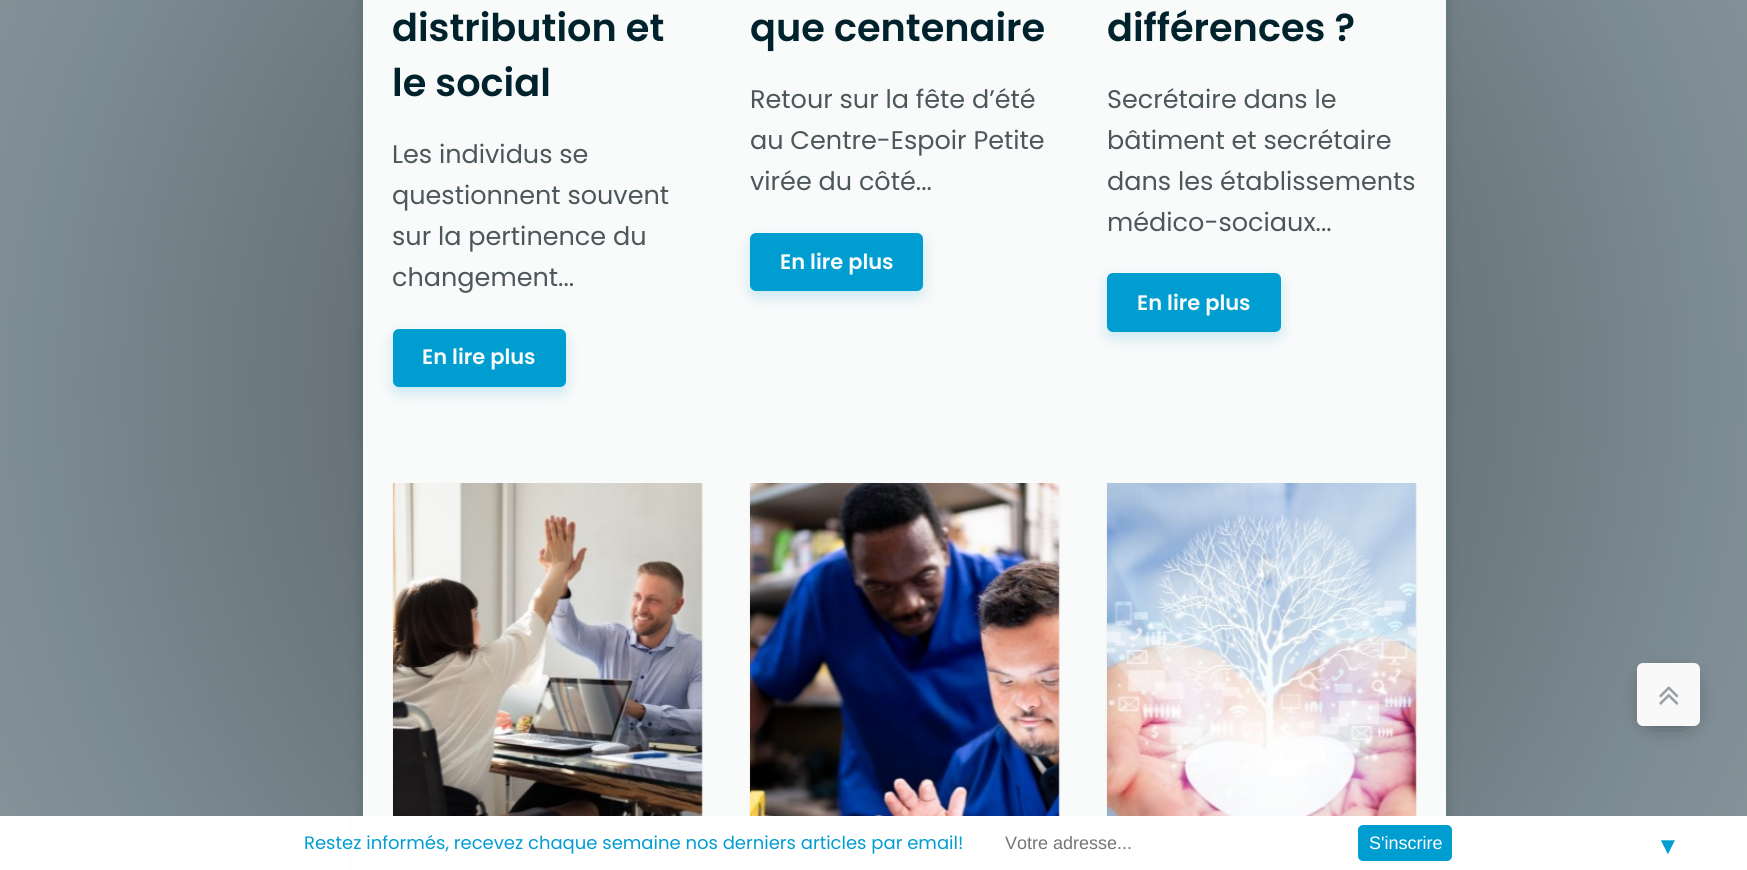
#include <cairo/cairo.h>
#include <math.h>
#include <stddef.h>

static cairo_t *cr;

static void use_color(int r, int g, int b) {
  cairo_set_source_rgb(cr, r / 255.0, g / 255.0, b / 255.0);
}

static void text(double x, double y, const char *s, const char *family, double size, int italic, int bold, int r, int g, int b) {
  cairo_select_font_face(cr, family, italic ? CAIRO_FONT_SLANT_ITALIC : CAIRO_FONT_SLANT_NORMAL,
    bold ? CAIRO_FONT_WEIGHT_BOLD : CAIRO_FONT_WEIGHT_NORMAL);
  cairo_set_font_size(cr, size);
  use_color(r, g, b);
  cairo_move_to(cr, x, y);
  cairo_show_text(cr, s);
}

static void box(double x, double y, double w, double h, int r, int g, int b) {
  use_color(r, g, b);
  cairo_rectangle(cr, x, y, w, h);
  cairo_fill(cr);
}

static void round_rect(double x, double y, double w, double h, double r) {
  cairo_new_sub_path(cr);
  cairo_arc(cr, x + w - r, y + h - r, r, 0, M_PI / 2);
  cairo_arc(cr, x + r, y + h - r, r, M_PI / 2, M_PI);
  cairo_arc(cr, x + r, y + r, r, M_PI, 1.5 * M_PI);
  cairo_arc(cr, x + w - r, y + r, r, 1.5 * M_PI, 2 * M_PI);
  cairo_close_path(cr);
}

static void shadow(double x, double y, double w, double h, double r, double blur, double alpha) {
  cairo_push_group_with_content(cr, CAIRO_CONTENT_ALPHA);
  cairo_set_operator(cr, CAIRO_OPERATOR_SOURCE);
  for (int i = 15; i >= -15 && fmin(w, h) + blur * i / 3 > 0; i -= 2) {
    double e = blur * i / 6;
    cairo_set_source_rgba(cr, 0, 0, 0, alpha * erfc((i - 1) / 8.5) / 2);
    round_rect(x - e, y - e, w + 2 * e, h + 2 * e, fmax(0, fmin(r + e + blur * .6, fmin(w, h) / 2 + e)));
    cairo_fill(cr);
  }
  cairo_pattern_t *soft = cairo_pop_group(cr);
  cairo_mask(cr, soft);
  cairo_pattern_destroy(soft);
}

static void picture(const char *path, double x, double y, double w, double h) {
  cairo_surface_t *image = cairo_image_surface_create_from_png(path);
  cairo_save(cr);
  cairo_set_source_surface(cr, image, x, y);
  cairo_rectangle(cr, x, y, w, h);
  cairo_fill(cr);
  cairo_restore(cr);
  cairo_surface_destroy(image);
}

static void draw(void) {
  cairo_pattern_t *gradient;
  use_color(255, 255, 255);
  cairo_paint(cr);
  gradient = cairo_pattern_create_radial(874, 386, 0, 874, 386, 2383);
  cairo_pattern_add_color_stop_rgba(gradient, 0, 0.275, 0.294, 0.306, 1);
  cairo_pattern_add_color_stop_rgba(gradient, 0.35, 0.486, 0.541, 0.576, 1);
  cairo_pattern_add_color_stop_rgba(gradient, 1, 0.863, 0.863, 0.863, 1);
  cairo_set_source(cr, gradient);
  cairo_pattern_destroy(gradient);
  cairo_rectangle(cr, 0, 0, 1747, 816);
  cairo_fill(cr);
  use_color(0, 34, 45);
  shadow(363, -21, 1083, 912, 0, 7, 0.2);
  box(363, 0, 1083, 816, 249, 250, 250);
  use_color(0, 157, 209);
  shadow(393, 335, 173, 58, 6, 7, 0.2);
  use_color(0, 157, 209);
  round_rect(393, 329, 173, 58, 6);
  cairo_fill(cr);
  use_color(0, 157, 209);
  shadow(750, 239, 173, 58, 6, 7, 0.2);
  use_color(0, 157, 209);
  round_rect(750, 233, 173, 58, 6);
  cairo_fill(cr);
  use_color(0, 157, 209);
  shadow(1107, 279, 174, 59, 6, 7, 0.2);
  use_color(0, 157, 209);
  round_rect(1107, 273, 174, 59, 6);
  cairo_fill(cr);
  use_color(0, 0, 0);
  shadow(393, 485, 309, 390, 0, 1.5, 0.06);
  picture("img_01.png", 393, 483, 310, 333);
  shadow(750, 485, 309, 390, 0, 1.5, 0.06);
  picture("img_02.png", 750, 483, 310, 333);
  shadow(1107, 485, 309, 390, 0, 1.5, 0.06);
  picture("img_03.png", 1107, 483, 310, 333);
  use_color(30, 30, 30);
  shadow(1652, 684, 33, 33, 0, 13, 1);
  use_color(249, 249, 250);
  round_rect(1637, 663, 63, 63, 6);
  cairo_fill(cr);
  picture("img_04.png", 1659, 686, 20, 19);
  box(352, 816, 1105, 54, 255, 255, 255);
  use_color(0, 157, 209);
  round_rect(1359, 826, 92, 34, 4);
  cairo_fill_preserve(cr);
  cairo_stroke(cr);
  text(392, 41, "distribution et", "Poppins SemiBold", 38.25, 0, 0, 0, 34, 45);
  text(392, 96, "le social", "Poppins SemiBold", 38.25, 0, 0, 0, 34, 45);
  text(392, 163, "Les individus se", "Poppins", 25.5, 0, 0, 76, 87, 91);
  text(392, 204, "questionnent souvent", "Poppins", 25.5, 0, 0, 76, 87, 91);
  text(392, 245, "sur la pertinence du", "Poppins", 25.5, 0, 0, 76, 87, 91);
  text(392, 286, "changement...", "Poppins", 25.5, 0, 0, 76, 87, 91);
  text(422, 364, "En lire plus", "Poppins SemiBold", 21, 0, 0, 249, 250, 250);
  text(750, 41, "que centenaire", "Poppins SemiBold", 38.25, 0, 0, 0, 34, 45);
  text(750, 108, "Retour sur la fête d’été", "Poppins", 25.5, 0, 0, 76, 87, 91);
  text(750, 149, "au Centre-Espoir Petite", "Poppins", 25.5, 0, 0, 76, 87, 91);
  text(750, 190, "virée du côté...", "Poppins", 25.5, 0, 0, 76, 87, 91);
  text(780, 269, "En lire plus", "Poppins SemiBold", 21, 0, 0, 249, 250, 250);
  text(1107, 41, "différences ?", "Poppins SemiBold", 38.25, 0, 0, 0, 34, 45);
  text(1107, 108, "Secrétaire dans le", "Poppins", 25.5, 0, 0, 76, 87, 91);
  text(1107, 149, "bâtiment et secrétaire", "Poppins", 25.5, 0, 0, 76, 87, 91);
  text(1107, 190, "dans les établissements", "Poppins", 25.5, 0, 0, 76, 87, 91);
  text(1107, 231, "médico-sociaux...", "Poppins", 25.5, 0, 0, 76, 87, 91);
  text(1137, 310, "En lire plus", "Poppins SemiBold", 21, 0, 0, 249, 250, 250);
  text(304, 849, "Restez informés, recevez chaque semaine nos derniers articles par email!", "Poppins", 18, 0, 0, 0, 157, 209);
  text(1005, 849, "Votre adresse...", "Liberation Sans", 18, 0, 0, 117, 117, 117);
  text(1369, 849, "S'inscrire", "Liberation Sans", 18, 0, 0, 255, 255, 255);
  text(1656, 854, "▼", "Liberation Serif", 24, 0, 0, 0, 157, 209);
}

int main(void) {
  cairo_surface_t *surface = cairo_image_surface_create(CAIRO_FORMAT_RGB24, 1747, 870);
  cr = cairo_create(surface);
  cairo_font_options_t *options = cairo_font_options_create();
  cairo_font_options_set_hint_metrics(options, CAIRO_HINT_METRICS_OFF);
  cairo_font_options_set_hint_style(options, CAIRO_HINT_STYLE_NONE);
  cairo_set_font_options(cr, options);
  cairo_set_miter_limit(cr, 4);
  draw();
  cairo_surface_write_to_png(surface, "out.png");
  cairo_font_options_destroy(options);
  cairo_destroy(cr);
  cairo_surface_destroy(surface);
  return 0;
}
